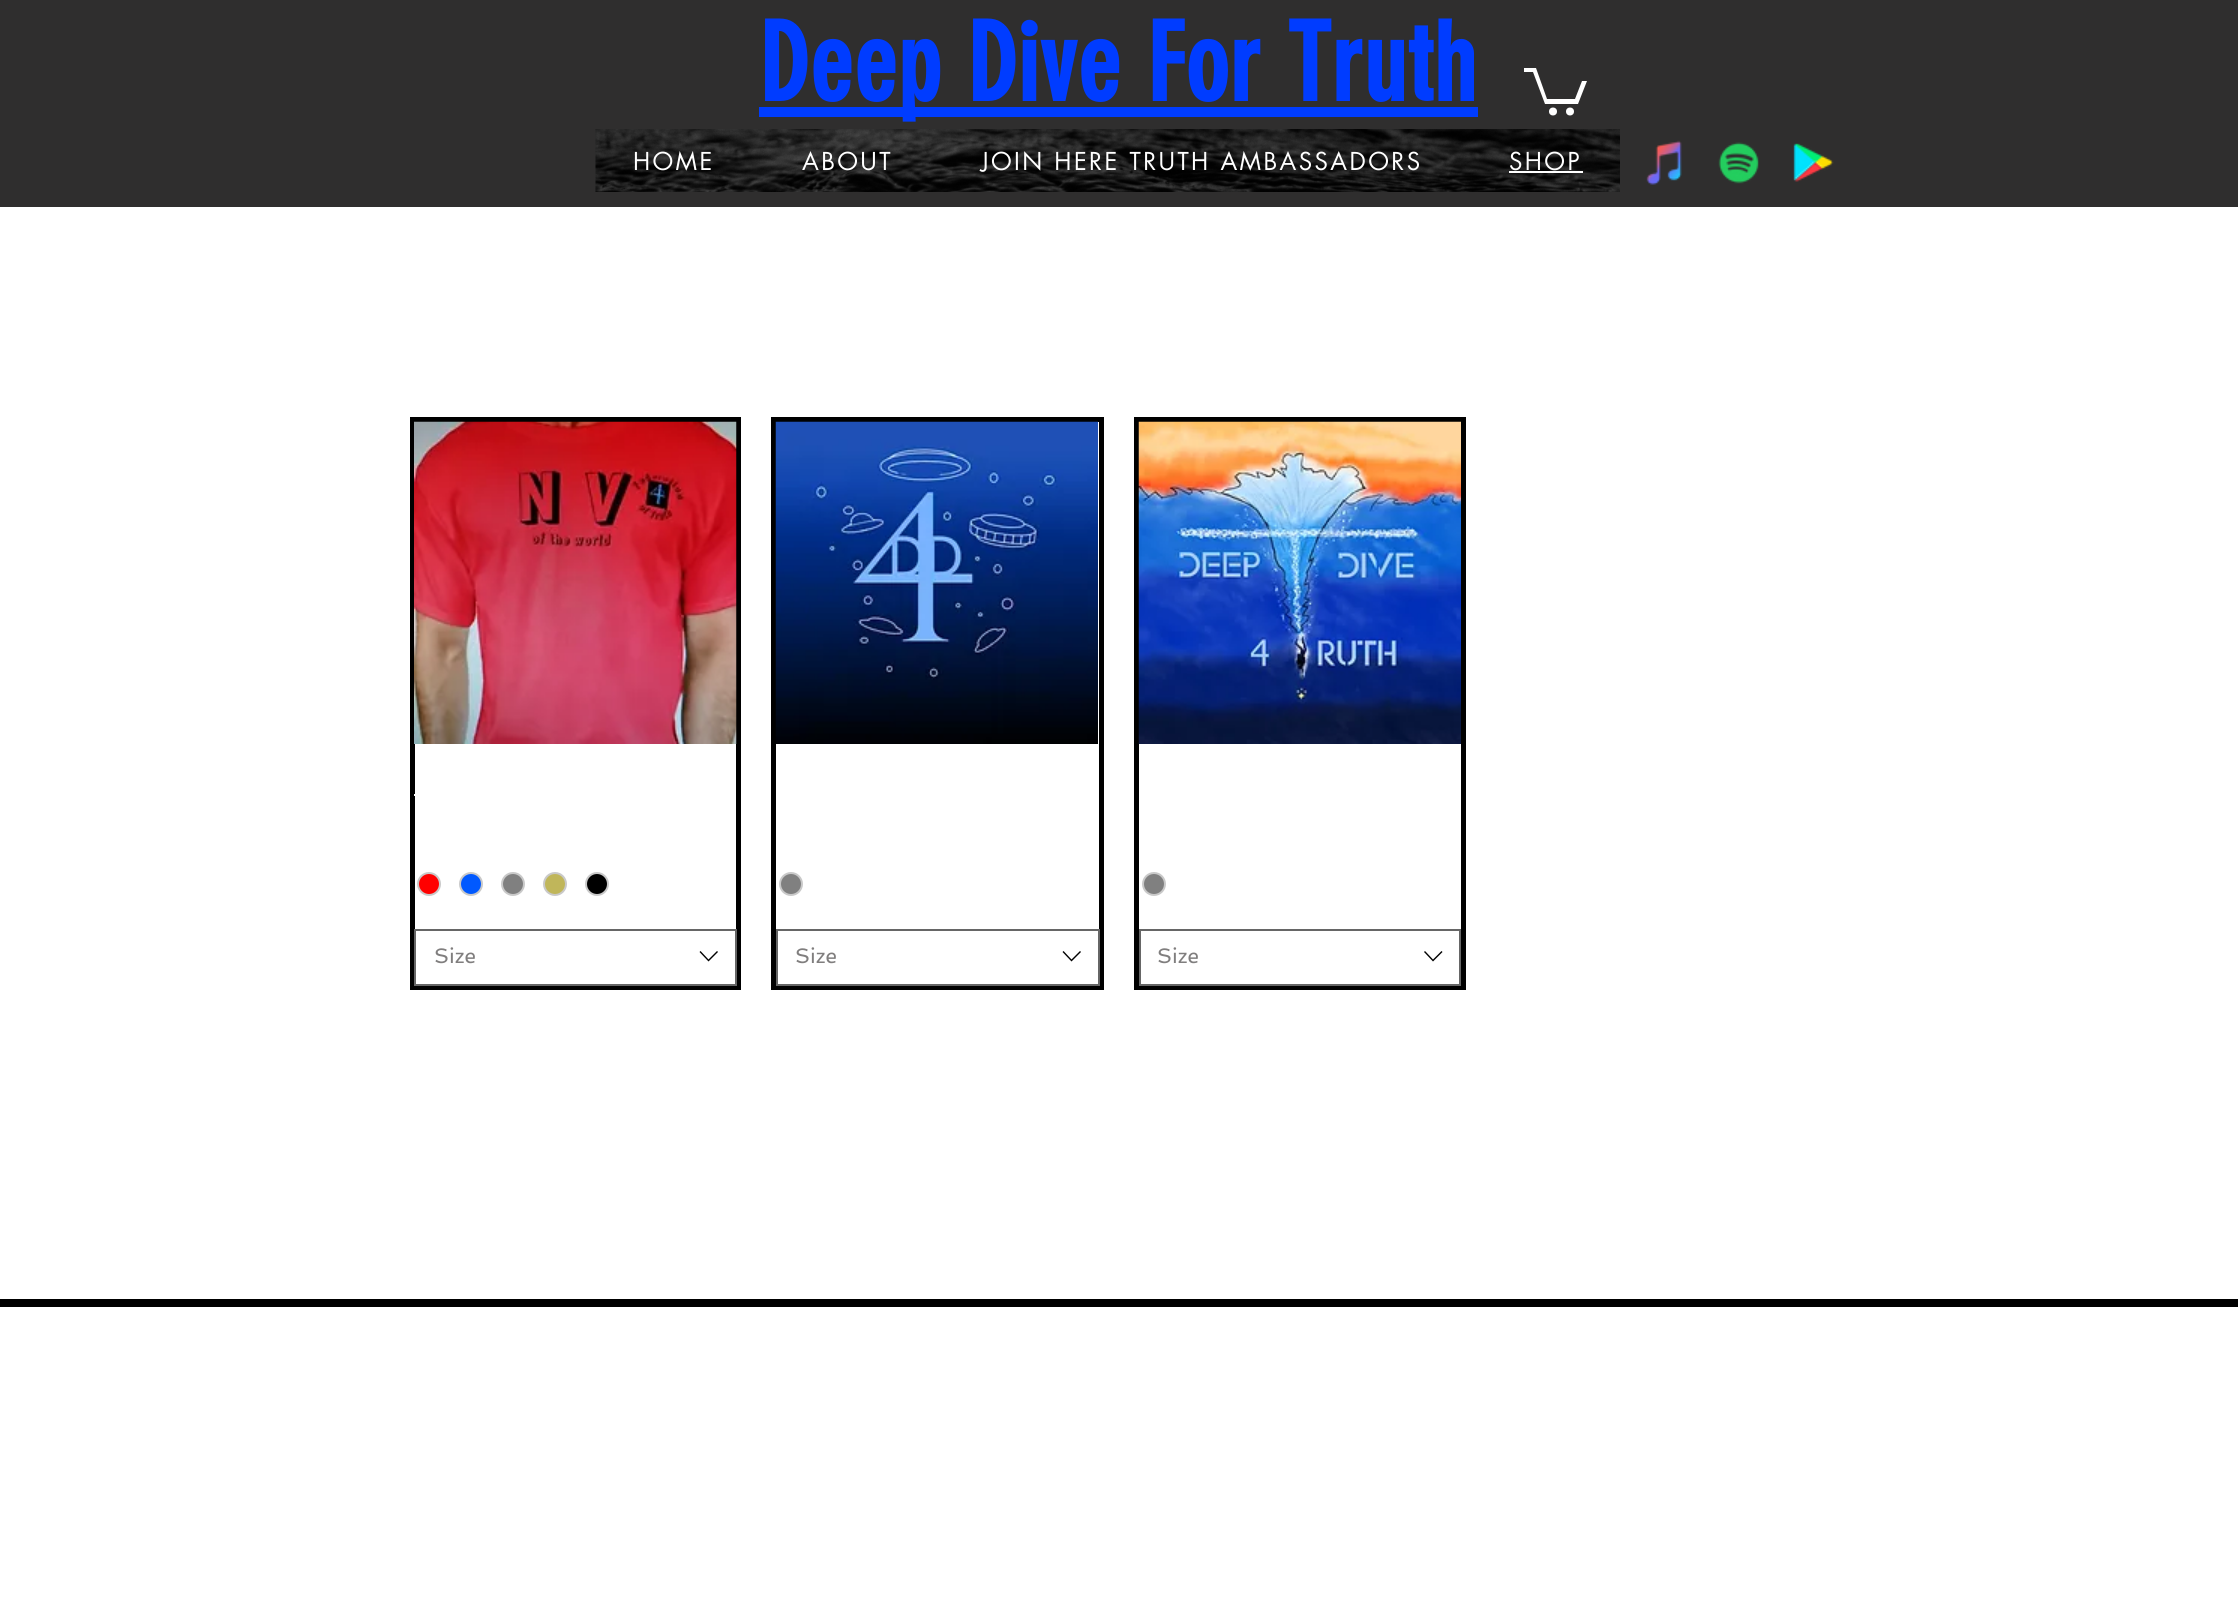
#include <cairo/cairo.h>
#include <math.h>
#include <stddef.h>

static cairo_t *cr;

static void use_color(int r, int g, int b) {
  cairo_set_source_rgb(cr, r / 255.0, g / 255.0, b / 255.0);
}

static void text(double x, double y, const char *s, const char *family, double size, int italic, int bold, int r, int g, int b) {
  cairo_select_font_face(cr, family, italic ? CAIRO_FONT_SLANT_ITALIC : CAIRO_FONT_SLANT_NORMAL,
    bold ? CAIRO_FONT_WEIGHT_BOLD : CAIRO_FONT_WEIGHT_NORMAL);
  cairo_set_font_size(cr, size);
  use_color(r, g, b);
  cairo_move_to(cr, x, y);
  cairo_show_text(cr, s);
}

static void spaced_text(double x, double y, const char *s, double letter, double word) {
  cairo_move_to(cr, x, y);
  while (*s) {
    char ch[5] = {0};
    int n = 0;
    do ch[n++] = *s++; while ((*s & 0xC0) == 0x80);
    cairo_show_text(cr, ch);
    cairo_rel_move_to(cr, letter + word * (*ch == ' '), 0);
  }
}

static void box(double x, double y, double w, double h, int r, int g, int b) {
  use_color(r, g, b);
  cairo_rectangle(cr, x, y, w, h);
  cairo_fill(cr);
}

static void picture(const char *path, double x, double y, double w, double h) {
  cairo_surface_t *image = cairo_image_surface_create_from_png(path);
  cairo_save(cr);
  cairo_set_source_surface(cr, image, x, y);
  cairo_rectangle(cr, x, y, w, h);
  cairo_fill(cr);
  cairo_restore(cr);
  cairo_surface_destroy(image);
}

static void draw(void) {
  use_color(255, 255, 255);
  cairo_paint(cr);
  box(0, 0, 2238, 207, 47, 46, 46);
  box(759, 107, 719, 10, 0, 60, 255);
  use_color(255, 255, 255);
  cairo_new_path(cr);
  cairo_move_to(cr, 1587, 81);
  cairo_line_to(cr, 1578, 104);
  cairo_line_to(cr, 1545, 104);
  cairo_line_to(cr, 1533, 72);
  cairo_line_to(cr, 1524, 72);
  cairo_line_to(cr, 1524, 68);
  cairo_line_to(cr, 1536, 68);
  cairo_line_to(cr, 1547, 99);
  cairo_line_to(cr, 1575, 99);
  cairo_line_to(cr, 1582, 81);
  cairo_fill(cr);
  cairo_arc(cr, 1570, 111.5, 4, 0, 2 * M_PI);
  cairo_fill(cr);
  cairo_arc(cr, 1553, 111.5, 4, 0, 2 * M_PI);
  cairo_fill(cr);
  picture("img_01.png", 595, 129, 1025, 63);
  box(1509, 171, 74, 2, 255, 255, 255);
  picture("img_02.png", 1646, 140, 36, 45);
  picture("img_03.png", 1718, 142, 41, 42);
  picture("img_04.png", 1793, 143, 41, 39);
  cairo_rectangle(cr, 412.5, 419.5, 326, 568);
  use_color(0, 0, 0);
  cairo_set_line_width(cr, 5);
  cairo_stroke(cr);
  picture("img_05.png", 414, 421, 323, 323);
  box(414, 794, 1, 2, 255, 255, 255);
  use_color(255, 0, 0);
  cairo_arc(cr, 429, 884, 11, 0, 2 * M_PI);
  cairo_fill_preserve(cr);
  use_color(201, 201, 201);
  cairo_set_line_width(cr, 2);
  cairo_stroke(cr);
  use_color(0, 89, 255);
  cairo_arc(cr, 471, 884, 11, 0, 2 * M_PI);
  cairo_fill_preserve(cr);
  use_color(201, 201, 201);
  cairo_stroke(cr);
  use_color(128, 128, 128);
  cairo_arc(cr, 513, 884, 11, 0, 2 * M_PI);
  cairo_fill_preserve(cr);
  use_color(201, 201, 201);
  cairo_stroke(cr);
  use_color(192, 182, 90);
  cairo_arc(cr, 555, 884, 11, 0, 2 * M_PI);
  cairo_fill_preserve(cr);
  use_color(201, 201, 201);
  cairo_stroke(cr);
  use_color(0, 0, 0);
  cairo_arc(cr, 597, 884, 11, 0, 2 * M_PI);
  cairo_fill_preserve(cr);
  use_color(201, 201, 201);
  cairo_stroke(cr);
  cairo_rectangle(cr, 415, 930, 321, 55);
  use_color(102, 102, 102);
  cairo_stroke(cr);
  use_color(0, 0, 0);
  cairo_set_fill_rule(cr, CAIRO_FILL_RULE_EVEN_ODD);
  cairo_new_path(cr);
  cairo_move_to(cr, 717, 951);
  cairo_line_to(cr, 718, 952);
  cairo_line_to(cr, 708.5, 961.5);
  cairo_line_to(cr, 699.5, 952);
  cairo_line_to(cr, 700.5, 951);
  cairo_line_to(cr, 708.5, 959.5);
  cairo_close_path(cr);
  cairo_fill(cr);
  cairo_rectangle(cr, 773.5, 419.5, 328, 568);
  cairo_set_line_width(cr, 5);
  cairo_stroke(cr);
  picture("img_06.png", 775, 421, 323, 323);
  use_color(128, 128, 128);
  cairo_arc(cr, 791, 884, 11, 0, 2 * M_PI);
  cairo_fill_preserve(cr);
  use_color(201, 201, 201);
  cairo_set_line_width(cr, 2);
  cairo_stroke(cr);
  cairo_rectangle(cr, 777, 930, 322, 55);
  use_color(102, 102, 102);
  cairo_stroke(cr);
  use_color(0, 0, 0);
  cairo_new_path(cr);
  cairo_move_to(cr, 1080, 951);
  cairo_line_to(cr, 1081, 952);
  cairo_line_to(cr, 1071.5, 961.5);
  cairo_line_to(cr, 1062.5, 952);
  cairo_line_to(cr, 1063.5, 951);
  cairo_line_to(cr, 1071.5, 959.5);
  cairo_close_path(cr);
  cairo_fill(cr);
  cairo_rectangle(cr, 1136.5, 419.5, 327, 568);
  cairo_set_line_width(cr, 5);
  cairo_stroke(cr);
  picture("img_07.png", 1138, 421, 323, 323);
  use_color(128, 128, 128);
  cairo_arc(cr, 1154, 884, 11, 0, 2 * M_PI);
  cairo_fill_preserve(cr);
  use_color(201, 201, 201);
  cairo_set_line_width(cr, 2);
  cairo_stroke(cr);
  cairo_rectangle(cr, 1140, 930, 320, 55);
  use_color(102, 102, 102);
  cairo_stroke(cr);
  use_color(0, 0, 0);
  cairo_new_path(cr);
  cairo_move_to(cr, 1441.5, 951);
  cairo_line_to(cr, 1442.5, 952);
  cairo_line_to(cr, 1433, 961.5);
  cairo_line_to(cr, 1424, 952);
  cairo_line_to(cr, 1425, 951);
  cairo_line_to(cr, 1433, 959.5);
  cairo_close_path(cr);
  cairo_fill(cr);
  box(0, 1299, 2238, 8, 0, 0, 0);
  text(759, 101, "Deep Dive For Truth", "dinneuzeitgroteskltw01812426", 108, 0, 1, 0, 60, 255);
  cairo_select_font_face(cr, "futura", CAIRO_FONT_SLANT_NORMAL, CAIRO_FONT_WEIGHT_NORMAL);
  cairo_set_font_size(cr, 24);
  use_color(255, 255, 255);
  spaced_text(633, 170, "HOME", 2.4, 0);
  spaced_text(802, 170, "ABOUT", 2.4, 0);
  spaced_text(981, 170, "JOIN HERE TRUTH AMBASSADORS", 2.4, 0);
  spaced_text(1509, 170, "SHOP", 2.4, 0);
  text(434, 963, "Size", "Spinnaker", 21, 0, 0, 128, 126, 126);
  text(795, 963, "Size", "Spinnaker", 21, 0, 0, 128, 126, 126);
  text(1157, 963, "Size", "Spinnaker", 21, 0, 0, 128, 126, 126);
}

int main(void) {
  cairo_surface_t *surface = cairo_image_surface_create(CAIRO_FORMAT_RGB24, 2238, 1597);
  cr = cairo_create(surface);
  cairo_font_options_t *options = cairo_font_options_create();
  cairo_font_options_set_hint_metrics(options, CAIRO_HINT_METRICS_OFF);
  cairo_font_options_set_hint_style(options, CAIRO_HINT_STYLE_NONE);
  cairo_set_font_options(cr, options);
  cairo_set_miter_limit(cr, 4);
  draw();
  cairo_surface_write_to_png(surface, "out.png");
  cairo_font_options_destroy(options);
  cairo_destroy(cr);
  cairo_surface_destroy(surface);
  return 0;
}
